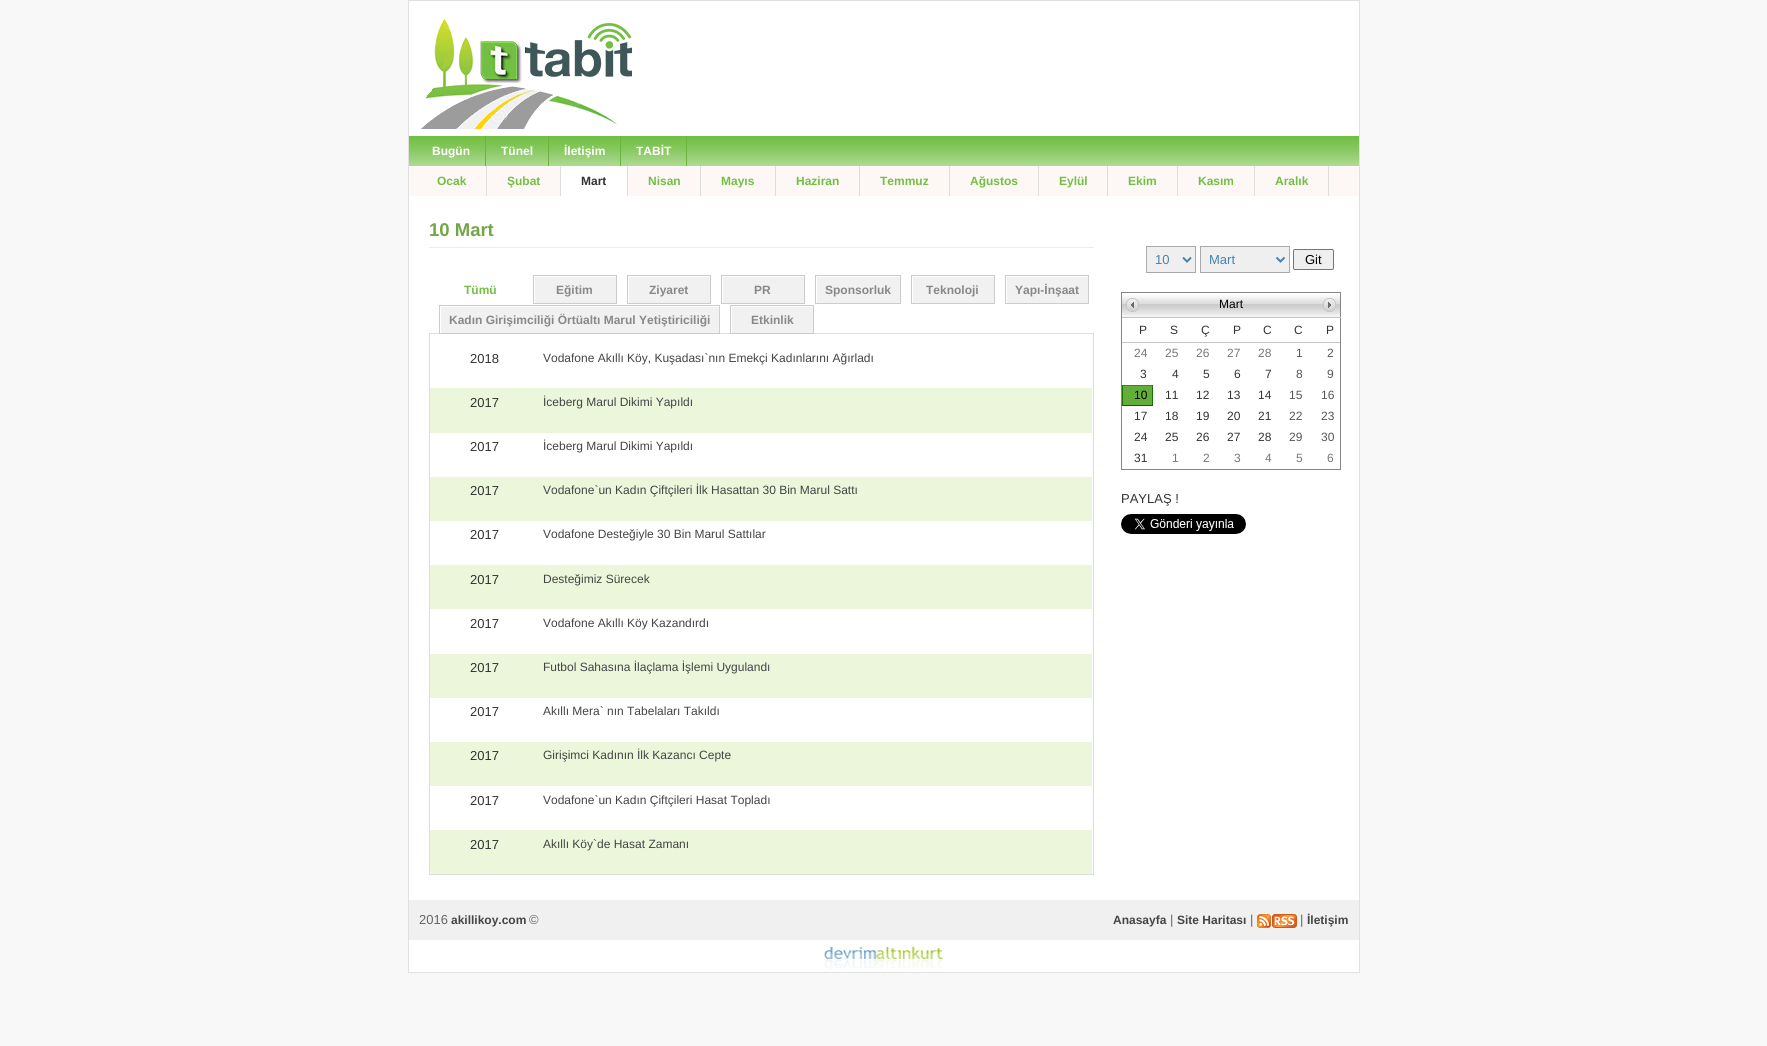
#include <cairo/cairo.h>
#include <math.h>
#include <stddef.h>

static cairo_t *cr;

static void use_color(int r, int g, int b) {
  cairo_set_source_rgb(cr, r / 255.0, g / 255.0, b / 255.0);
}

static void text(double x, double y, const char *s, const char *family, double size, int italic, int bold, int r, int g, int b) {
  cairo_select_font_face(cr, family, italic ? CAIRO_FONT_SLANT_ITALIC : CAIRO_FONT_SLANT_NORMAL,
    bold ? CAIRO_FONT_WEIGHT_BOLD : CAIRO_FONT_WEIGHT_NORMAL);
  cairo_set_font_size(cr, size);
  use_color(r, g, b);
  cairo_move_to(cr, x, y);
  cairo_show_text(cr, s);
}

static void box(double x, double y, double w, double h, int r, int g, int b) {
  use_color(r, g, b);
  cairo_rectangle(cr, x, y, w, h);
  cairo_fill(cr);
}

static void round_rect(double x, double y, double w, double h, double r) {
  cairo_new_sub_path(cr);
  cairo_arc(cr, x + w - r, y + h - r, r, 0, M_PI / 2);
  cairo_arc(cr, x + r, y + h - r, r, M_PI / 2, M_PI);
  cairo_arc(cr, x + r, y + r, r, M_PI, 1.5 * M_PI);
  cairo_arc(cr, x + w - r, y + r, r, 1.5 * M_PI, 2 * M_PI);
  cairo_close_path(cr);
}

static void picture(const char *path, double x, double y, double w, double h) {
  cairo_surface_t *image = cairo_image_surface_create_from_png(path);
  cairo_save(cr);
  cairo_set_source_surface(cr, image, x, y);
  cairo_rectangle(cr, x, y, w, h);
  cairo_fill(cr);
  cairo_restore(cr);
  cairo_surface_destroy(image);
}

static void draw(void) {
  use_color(248, 248, 248);
  cairo_paint(cr);
  box(409, 1, 950, 899, 255, 255, 255);
  cairo_rectangle(cr, 408.5, 0.5, 951, 972);
  use_color(224, 224, 224);
  cairo_set_line_width(cr, 1);
  cairo_stroke(cr);
  picture("img_01.png", 421, 19, 211, 110);
  box(409, 136, 950, 3, 115, 191, 68);
  picture("img_02.png", 409, 139, 950, 27);
  box(485, 136, 1, 30, 108, 180, 63);
  box(548, 136, 1, 30, 108, 180, 63);
  box(620, 136, 1, 30, 108, 180, 63);
  box(686, 136, 1, 30, 108, 180, 63);
  box(409, 166, 950, 30, 253, 248, 246);
  box(486, 166, 1, 30, 221, 221, 221);
  box(560, 166, 1, 30, 221, 221, 221);
  box(627, 166, 1, 30, 221, 221, 221);
  box(561, 166, 66, 30, 255, 255, 255);
  box(700, 166, 1, 30, 221, 221, 221);
  box(775, 166, 1, 30, 221, 221, 221);
  box(859, 166, 1, 30, 221, 221, 221);
  box(949, 166, 1, 30, 221, 221, 221);
  box(1038, 166, 1, 30, 221, 221, 221);
  box(1107, 166, 1, 30, 221, 221, 221);
  box(1177, 166, 1, 30, 221, 221, 221);
  box(1254, 166, 1, 30, 221, 221, 221);
  box(1328, 166, 1, 30, 221, 221, 221);
  box(429, 247, 665, 1, 238, 238, 238);
  box(429, 333, 665, 1, 221, 221, 221);
  picture("img_03.png", 533, 275, 84, 29);
  picture("img_04.png", 533, 276, 2, 27);
  picture("img_03.png", 627, 275, 84, 29);
  picture("img_04.png", 627, 276, 2, 27);
  picture("img_03.png", 721, 275, 84, 29);
  picture("img_04.png", 721, 276, 2, 27);
  picture("img_05.png", 815, 275, 86, 29);
  picture("img_04.png", 815, 276, 2, 27);
  picture("img_03.png", 911, 275, 84, 29);
  picture("img_04.png", 911, 276, 2, 27);
  picture("img_06.png", 1005, 275, 84, 29);
  picture("img_04.png", 1005, 276, 2, 27);
  picture("img_07.png", 439, 305, 281, 29);
  picture("img_04.png", 439, 306, 2, 27);
  picture("img_03.png", 730, 305, 84, 29);
  picture("img_04.png", 730, 306, 2, 27);
  box(1093, 334, 1, 541, 221, 221, 221);
  box(429, 874, 665, 1, 221, 221, 221);
  box(429, 334, 1, 541, 221, 221, 221);
  box(430, 388, 662, 45, 235, 246, 218);
  box(430, 477, 662, 44, 235, 246, 218);
  box(430, 565, 662, 44, 235, 246, 218);
  box(430, 654, 662, 44, 235, 246, 218);
  box(430, 742, 662, 44, 235, 246, 218);
  box(430, 830, 662, 44, 235, 246, 218);
  use_color(239, 239, 239);
  cairo_rectangle(cr, 1146.5, 246.5, 49, 26);
  cairo_fill_preserve(cr);
  use_color(170, 170, 170);
  cairo_stroke(cr);
  cairo_new_path(cr);
  cairo_move_to(cr, 1183, 257.5);
  cairo_line_to(cr, 1187, 261.5);
  cairo_line_to(cr, 1191, 257.5);
  use_color(66, 132, 176);
  cairo_set_line_width(cr, 2);
  cairo_stroke(cr);
  use_color(239, 239, 239);
  cairo_rectangle(cr, 1200.5, 246.5, 89, 26);
  cairo_fill_preserve(cr);
  use_color(170, 170, 170);
  cairo_set_line_width(cr, 1);
  cairo_stroke(cr);
  cairo_new_path(cr);
  cairo_move_to(cr, 1276.5, 257.5);
  cairo_line_to(cr, 1280.5, 261.5);
  cairo_line_to(cr, 1284.5, 257.5);
  use_color(66, 132, 176);
  cairo_set_line_width(cr, 2);
  cairo_stroke(cr);
  use_color(239, 239, 239);
  round_rect(1293.5, 249.5, 40, 20, 1.5);
  cairo_fill_preserve(cr);
  use_color(118, 118, 118);
  cairo_set_line_width(cr, 1);
  cairo_stroke(cr);
  box(1122, 315, 218, 2, 243, 243, 243);
  picture("img_08.png", 1122, 293, 218, 22);
  box(1121, 292, 220, 1, 134, 134, 134);
  box(1340, 292, 1, 178, 134, 134, 134);
  box(1121, 317, 220, 1, 196, 196, 196);
  box(1121, 292, 1, 26, 134, 134, 134);
  picture("img_09.png", 1126, 298, 13, 14);
  picture("img_10.png", 1323, 298, 13, 14);
  box(1121, 469, 220, 1, 134, 134, 134);
  box(1121, 318, 1, 152, 134, 134, 134);
  box(1122, 342, 218, 1, 197, 197, 197);
  box(1122, 385, 31, 1, 35, 149, 0);
  box(1152, 385, 1, 21, 27, 116, 0);
  box(1122, 405, 31, 1, 21, 89, 0);
  box(1122, 385, 1, 21, 27, 116, 0);
  box(1123, 386, 29, 19, 99, 173, 57);
  picture("img_11.png", 1121, 514, 125, 20);
  box(409, 900, 950, 40, 240, 240, 240);
  picture("img_12.png", 1257, 914, 40, 14);
  box(409, 940, 950, 32, 255, 255, 255);
  picture("img_13.png", 824, 946, 119, 25);
  text(432, 155, "Bugün", "Liberation Sans", 12, 0, 1, 255, 255, 255);
  text(501, 155, "Tünel", "Liberation Sans", 12, 0, 1, 255, 255, 255);
  text(564, 155, "İletişim", "Liberation Sans", 12, 0, 1, 255, 255, 255);
  text(636, 155, "TABİT", "Liberation Sans", 12, 0, 1, 255, 255, 255);
  text(437, 185, "Ocak", "Liberation Sans", 12, 0, 1, 115, 191, 68);
  text(507, 185, "Şubat", "Liberation Sans", 12, 0, 1, 115, 191, 68);
  text(581, 185, "Mart", "Liberation Sans", 12, 0, 1, 51, 51, 51);
  text(648, 185, "Nisan", "Liberation Sans", 12, 0, 1, 115, 191, 68);
  text(721, 185, "Mayıs", "Liberation Sans", 12, 0, 1, 115, 191, 68);
  text(796, 185, "Haziran", "Liberation Sans", 12, 0, 1, 115, 191, 68);
  text(880, 185, "Temmuz", "Liberation Sans", 12, 0, 1, 115, 191, 68);
  text(970, 185, "Ağustos", "Liberation Sans", 12, 0, 1, 115, 191, 68);
  text(1059, 185, "Eylül", "Liberation Sans", 12, 0, 1, 115, 191, 68);
  text(1128, 185, "Ekim", "Liberation Sans", 12, 0, 1, 115, 191, 68);
  text(1198, 185, "Kasım", "Liberation Sans", 12, 0, 1, 115, 191, 68);
  text(1275, 185, "Aralık", "Liberation Sans", 12, 0, 1, 115, 191, 68);
  text(429, 236, "10 Mart", "Liberation Sans", 18.5, 0, 1, 117, 165, 75);
  text(464, 294, "Tümü", "Liberation Sans", 12, 0, 1, 115, 191, 68);
  text(556, 294, "Eğitim", "Liberation Sans", 12, 0, 1, 136, 136, 136);
  text(649, 294, "Ziyaret", "Liberation Sans", 12, 0, 1, 136, 136, 136);
  text(754, 294, "PR", "Liberation Sans", 12, 0, 1, 136, 136, 136);
  text(825, 294, "Sponsorluk", "Liberation Sans", 12, 0, 1, 136, 136, 136);
  text(926, 294, "Teknoloji", "Liberation Sans", 12, 0, 1, 136, 136, 136);
  text(1015, 294, "Yapı-İnşaat", "Liberation Sans", 12, 0, 1, 136, 136, 136);
  text(449, 324, "Kadın Girişimciliği Örtüaltı Marul Yetiştiriciliği", "Liberation Sans", 12, 0, 1, 136, 136, 136);
  text(751, 324, "Etkinlik", "Liberation Sans", 12, 0, 1, 136, 136, 136);
  text(470, 363, "2018", "Liberation Sans", 13, 0, 0, 51, 51, 51);
  text(543, 362, "Vodafone Akıllı Köy, Kuşadası`nın Emekçi Kadınlarını Ağırladı", "Liberation Sans", 12, 0, 0, 68, 68, 68);
  text(470, 407, "2017", "Liberation Sans", 13, 0, 0, 51, 51, 51);
  text(543, 406, "İceberg Marul Dikimi Yapıldı", "Liberation Sans", 12, 0, 0, 68, 68, 68);
  text(470, 451, "2017", "Liberation Sans", 13, 0, 0, 51, 51, 51);
  text(543, 450, "İceberg Marul Dikimi Yapıldı", "Liberation Sans", 12, 0, 0, 68, 68, 68);
  text(470, 495, "2017", "Liberation Sans", 13, 0, 0, 51, 51, 51);
  text(543, 494, "Vodafone`un Kadın Çiftçileri İlk Hasattan 30 Bin Marul Sattı", "Liberation Sans", 12, 0, 0, 68, 68, 68);
  text(470, 539, "2017", "Liberation Sans", 13, 0, 0, 51, 51, 51);
  text(543, 538, "Vodafone Desteğiyle 30 Bin Marul Sattılar", "Liberation Sans", 12, 0, 0, 68, 68, 68);
  text(470, 584, "2017", "Liberation Sans", 13, 0, 0, 51, 51, 51);
  text(543, 583, "Desteğimiz Sürecek", "Liberation Sans", 12, 0, 0, 68, 68, 68);
  text(470, 628, "2017", "Liberation Sans", 13, 0, 0, 51, 51, 51);
  text(543, 627, "Vodafone Akıllı Köy Kazandırdı", "Liberation Sans", 12, 0, 0, 68, 68, 68);
  text(470, 672, "2017", "Liberation Sans", 13, 0, 0, 51, 51, 51);
  text(543, 671, "Futbol Sahasına İlaçlama İşlemi Uygulandı", "Liberation Sans", 12, 0, 0, 68, 68, 68);
  text(470, 716, "2017", "Liberation Sans", 13, 0, 0, 51, 51, 51);
  text(543, 715, "Akıllı Mera` nın Tabelaları Takıldı", "Liberation Sans", 12, 0, 0, 68, 68, 68);
  text(470, 760, "2017", "Liberation Sans", 13, 0, 0, 51, 51, 51);
  text(543, 759, "Girişimci Kadının İlk Kazancı Cepte", "Liberation Sans", 12, 0, 0, 68, 68, 68);
  text(470, 805, "2017", "Liberation Sans", 13, 0, 0, 51, 51, 51);
  text(543, 804, "Vodafone`un Kadın Çiftçileri Hasat Topladı", "Liberation Sans", 12, 0, 0, 68, 68, 68);
  text(470, 849, "2017", "Liberation Sans", 13, 0, 0, 51, 51, 51);
  text(543, 848, "Akıllı Köy`de Hasat Zamanı", "Liberation Sans", 12, 0, 0, 68, 68, 68);
  text(1155, 264, "10", "Liberation Sans", 13, 0, 0, 66, 132, 176);
  text(1209, 264, "Mart", "Liberation Sans", 13, 0, 0, 66, 132, 176);
  text(1305, 264, "Git", "Liberation Sans", 13, 0, 0, 0, 0, 0);
  text(1219, 308, "Mart", "Liberation Sans", 12, 0, 0, 0, 0, 0);
  text(1139, 334, "P", "Liberation Sans", 12, 0, 0, 51, 51, 51);
  text(1170, 334, "S", "Liberation Sans", 12, 0, 0, 51, 51, 51);
  text(1201, 334, "Ç", "Liberation Sans", 12, 0, 0, 51, 51, 51);
  text(1233, 334, "P", "Liberation Sans", 12, 0, 0, 51, 51, 51);
  text(1263, 334, "C", "Liberation Sans", 12, 0, 0, 51, 51, 51);
  text(1294, 334, "C", "Liberation Sans", 12, 0, 0, 51, 51, 51);
  text(1326, 334, "P", "Liberation Sans", 12, 0, 0, 51, 51, 51);
  text(1134, 357, "24", "Liberation Sans", 12, 0, 0, 119, 119, 119);
  text(1165, 357, "25", "Liberation Sans", 12, 0, 0, 119, 119, 119);
  text(1196, 357, "26", "Liberation Sans", 12, 0, 0, 119, 119, 119);
  text(1227, 357, "27", "Liberation Sans", 12, 0, 0, 119, 119, 119);
  text(1258, 357, "28", "Liberation Sans", 12, 0, 0, 119, 119, 119);
  text(1296, 357, "1", "Liberation Sans", 12, 0, 0, 86, 86, 86);
  text(1327, 357, "2", "Liberation Sans", 12, 0, 0, 86, 86, 86);
  text(1140, 378, "3", "Liberation Sans", 12, 0, 0, 51, 51, 51);
  text(1172, 378, "4", "Liberation Sans", 12, 0, 0, 51, 51, 51);
  text(1203, 378, "5", "Liberation Sans", 12, 0, 0, 51, 51, 51);
  text(1234, 378, "6", "Liberation Sans", 12, 0, 0, 51, 51, 51);
  text(1265, 378, "7", "Liberation Sans", 12, 0, 0, 51, 51, 51);
  text(1296, 378, "8", "Liberation Sans", 12, 0, 0, 86, 86, 86);
  text(1327, 378, "9", "Liberation Sans", 12, 0, 0, 86, 86, 86);
  text(1134, 399, "10", "Liberation Sans", 12, 0, 0, 0, 0, 0);
  text(1165, 399, "11", "Liberation Sans", 12, 0, 0, 51, 51, 51);
  text(1196, 399, "12", "Liberation Sans", 12, 0, 0, 51, 51, 51);
  text(1227, 399, "13", "Liberation Sans", 12, 0, 0, 51, 51, 51);
  text(1258, 399, "14", "Liberation Sans", 12, 0, 0, 51, 51, 51);
  text(1289, 399, "15", "Liberation Sans", 12, 0, 0, 86, 86, 86);
  text(1321, 399, "16", "Liberation Sans", 12, 0, 0, 86, 86, 86);
  text(1134, 420, "17", "Liberation Sans", 12, 0, 0, 51, 51, 51);
  text(1165, 420, "18", "Liberation Sans", 12, 0, 0, 51, 51, 51);
  text(1196, 420, "19", "Liberation Sans", 12, 0, 0, 51, 51, 51);
  text(1227, 420, "20", "Liberation Sans", 12, 0, 0, 51, 51, 51);
  text(1258, 420, "21", "Liberation Sans", 12, 0, 0, 51, 51, 51);
  text(1289, 420, "22", "Liberation Sans", 12, 0, 0, 86, 86, 86);
  text(1321, 420, "23", "Liberation Sans", 12, 0, 0, 86, 86, 86);
  text(1134, 441, "24", "Liberation Sans", 12, 0, 0, 51, 51, 51);
  text(1165, 441, "25", "Liberation Sans", 12, 0, 0, 51, 51, 51);
  text(1196, 441, "26", "Liberation Sans", 12, 0, 0, 51, 51, 51);
  text(1227, 441, "27", "Liberation Sans", 12, 0, 0, 51, 51, 51);
  text(1258, 441, "28", "Liberation Sans", 12, 0, 0, 51, 51, 51);
  text(1289, 441, "29", "Liberation Sans", 12, 0, 0, 86, 86, 86);
  text(1321, 441, "30", "Liberation Sans", 12, 0, 0, 86, 86, 86);
  text(1134, 462, "31", "Liberation Sans", 12, 0, 0, 51, 51, 51);
  text(1172, 462, "1", "Liberation Sans", 12, 0, 0, 119, 119, 119);
  text(1203, 462, "2", "Liberation Sans", 12, 0, 0, 119, 119, 119);
  text(1234, 462, "3", "Liberation Sans", 12, 0, 0, 119, 119, 119);
  text(1265, 462, "4", "Liberation Sans", 12, 0, 0, 119, 119, 119);
  text(1296, 462, "5", "Liberation Sans", 12, 0, 0, 119, 119, 119);
  text(1327, 462, "6", "Liberation Sans", 12, 0, 0, 119, 119, 119);
  text(1121, 503, "PAYLAŞ !", "Liberation Sans", 13, 0, 0, 51, 51, 51);
  text(419, 924, "2016", "Liberation Sans", 13, 0, 0, 102, 102, 102);
  text(451, 924, "akillikoy.com", "Liberation Sans", 12, 0, 1, 68, 68, 68);
  text(529, 924, "©", "Liberation Sans", 13, 0, 0, 102, 102, 102);
  text(1113, 924, "Anasayfa", "Liberation Sans", 12, 0, 1, 68, 68, 68);
  text(1170, 924, "|", "Liberation Sans", 13, 0, 0, 102, 102, 102);
  text(1177, 924, "Site Haritası", "Liberation Sans", 12, 0, 1, 68, 68, 68);
  text(1250, 924, "|", "Liberation Sans", 13, 0, 0, 102, 102, 102);
  text(1300, 924, "|", "Liberation Sans", 13, 0, 0, 102, 102, 102);
  text(1307, 924, "İletişim", "Liberation Sans", 12, 0, 1, 68, 68, 68);
}

int main(void) {
  cairo_surface_t *surface = cairo_image_surface_create(CAIRO_FORMAT_RGB24, 1767, 1046);
  cr = cairo_create(surface);
  cairo_font_options_t *options = cairo_font_options_create();
  cairo_font_options_set_hint_metrics(options, CAIRO_HINT_METRICS_OFF);
  cairo_font_options_set_hint_style(options, CAIRO_HINT_STYLE_NONE);
  cairo_set_font_options(cr, options);
  cairo_set_miter_limit(cr, 4);
  draw();
  cairo_surface_write_to_png(surface, "out.png");
  cairo_font_options_destroy(options);
  cairo_destroy(cr);
  cairo_surface_destroy(surface);
  return 0;
}
